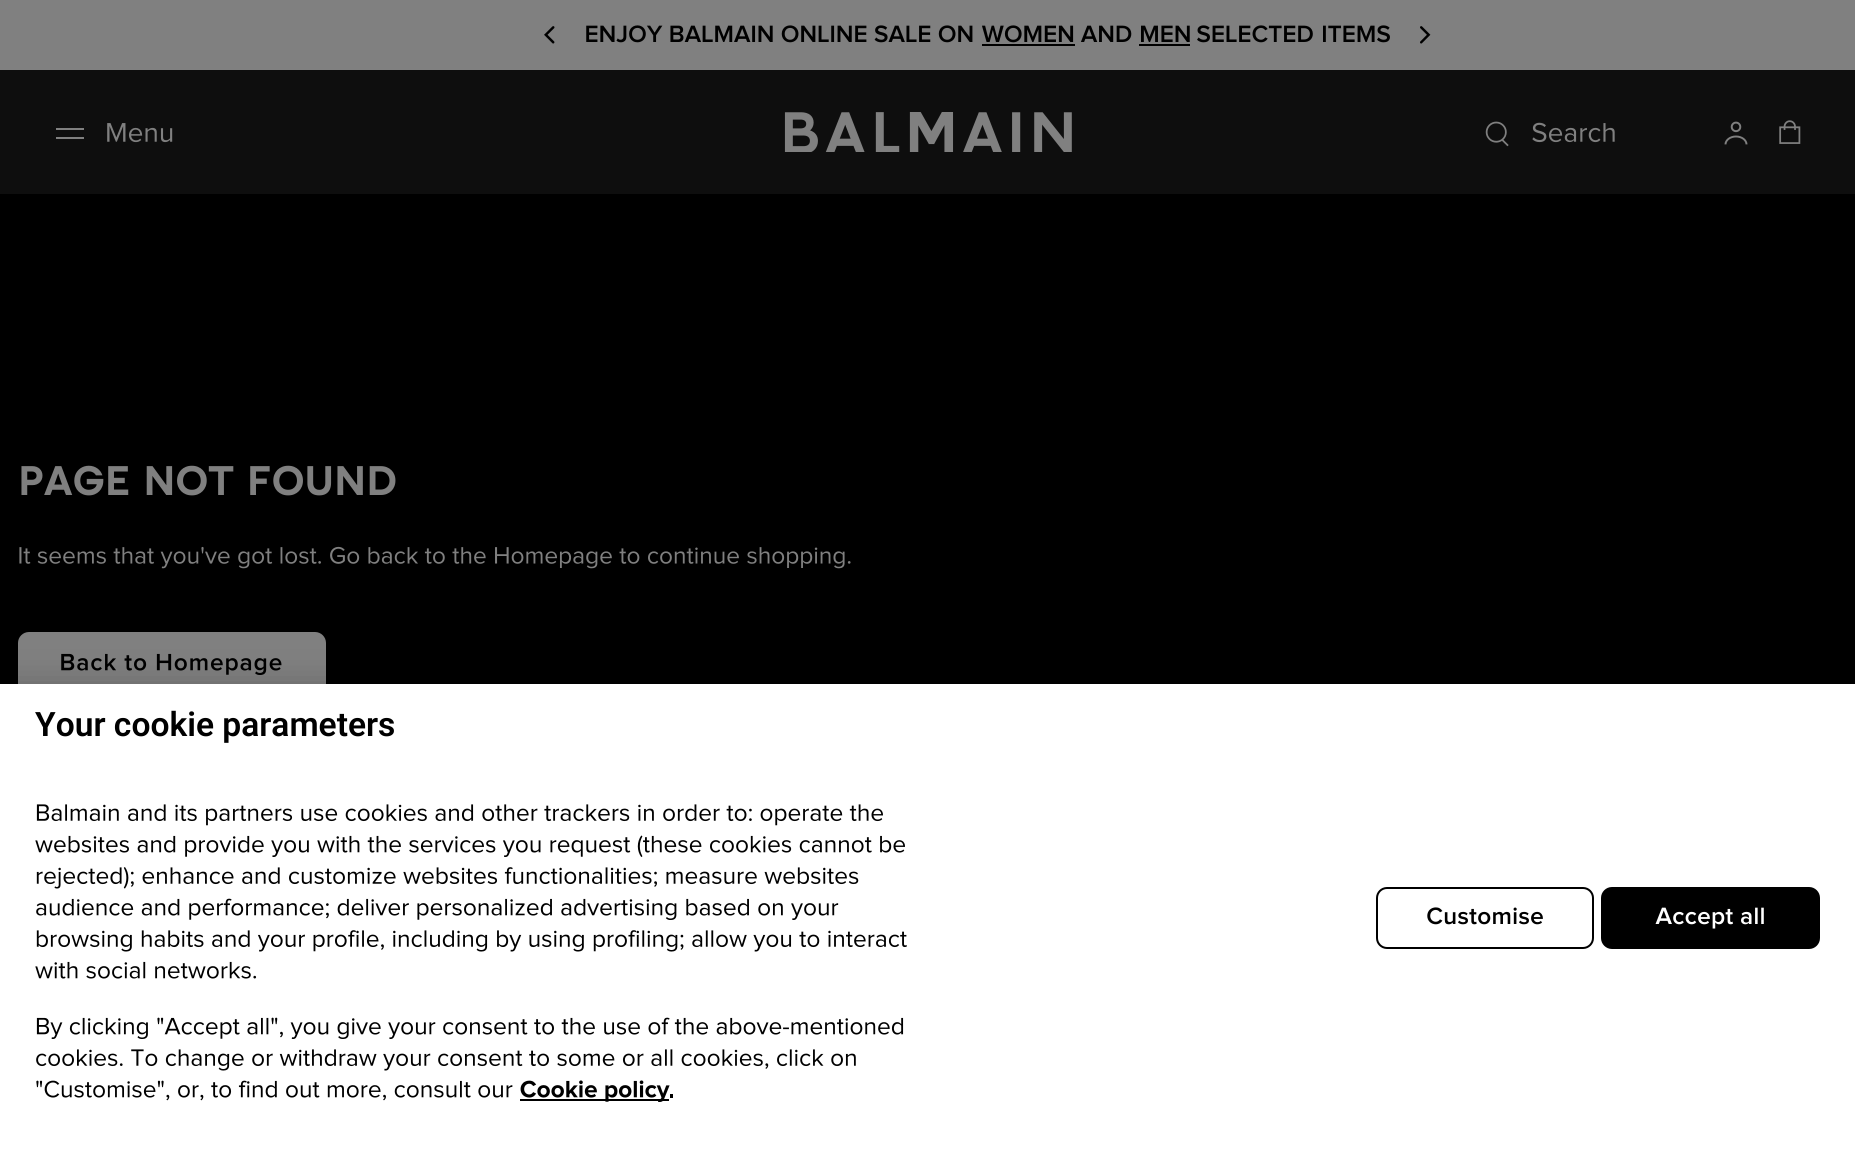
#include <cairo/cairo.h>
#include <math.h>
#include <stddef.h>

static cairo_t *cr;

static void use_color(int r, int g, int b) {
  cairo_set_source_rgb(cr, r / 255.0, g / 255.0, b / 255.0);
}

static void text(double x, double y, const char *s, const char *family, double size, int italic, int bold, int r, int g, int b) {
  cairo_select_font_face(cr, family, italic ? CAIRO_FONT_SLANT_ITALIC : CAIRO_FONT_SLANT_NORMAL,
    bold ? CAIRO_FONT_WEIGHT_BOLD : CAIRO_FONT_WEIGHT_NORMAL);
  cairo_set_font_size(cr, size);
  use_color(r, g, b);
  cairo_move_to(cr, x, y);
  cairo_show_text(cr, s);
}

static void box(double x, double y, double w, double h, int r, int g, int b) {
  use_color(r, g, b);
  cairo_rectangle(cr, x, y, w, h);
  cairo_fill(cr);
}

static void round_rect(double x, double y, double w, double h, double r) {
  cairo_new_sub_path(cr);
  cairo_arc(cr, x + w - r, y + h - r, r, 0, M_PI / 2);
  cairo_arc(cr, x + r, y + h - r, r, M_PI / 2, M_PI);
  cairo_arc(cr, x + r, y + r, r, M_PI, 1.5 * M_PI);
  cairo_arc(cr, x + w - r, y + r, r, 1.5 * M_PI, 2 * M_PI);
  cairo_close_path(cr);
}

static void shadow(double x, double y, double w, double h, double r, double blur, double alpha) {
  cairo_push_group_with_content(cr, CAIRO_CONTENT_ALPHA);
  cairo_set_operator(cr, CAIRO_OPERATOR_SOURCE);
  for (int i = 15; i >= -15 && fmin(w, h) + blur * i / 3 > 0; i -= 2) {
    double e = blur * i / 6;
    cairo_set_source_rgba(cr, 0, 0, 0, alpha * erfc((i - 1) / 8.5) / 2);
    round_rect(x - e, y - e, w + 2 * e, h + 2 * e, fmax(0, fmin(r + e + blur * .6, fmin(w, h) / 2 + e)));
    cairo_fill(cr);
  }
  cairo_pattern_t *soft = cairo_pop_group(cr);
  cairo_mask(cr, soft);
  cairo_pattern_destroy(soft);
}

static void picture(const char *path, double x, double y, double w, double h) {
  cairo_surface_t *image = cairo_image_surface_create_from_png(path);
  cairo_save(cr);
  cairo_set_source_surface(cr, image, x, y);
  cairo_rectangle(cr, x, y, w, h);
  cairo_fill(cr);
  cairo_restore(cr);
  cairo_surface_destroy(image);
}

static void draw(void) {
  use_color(0, 0, 0);
  cairo_paint(cr);
  box(0, 0, 1855, 70, 128, 128, 128);
  picture("img_01.png", 544, 26, 11, 18);
  picture("img_02.png", 586, 25, 387, 18);
  picture("img_03.png", 982, 25, 92, 18);
  picture("img_04.png", 1080, 25, 52, 17);
  picture("img_05.png", 1141, 25, 49, 17);
  picture("img_06.png", 1197, 25, 116, 18);
  picture("img_07.png", 1323, 25, 67, 18);
  box(982, 44, 93, 2, 0, 0, 0);
  box(1139, 44, 51, 2, 0, 0, 0);
  picture("img_08.png", 1420, 26, 11, 18);
  box(0, 70, 1855, 124, 14, 14, 14);
  box(56, 128, 28, 2, 128, 128, 128);
  box(56, 137, 28, 2, 128, 128, 128);
  picture("img_09.png", 107, 123, 66, 20);
  picture("img_10.png", 784, 112, 288, 40);
  picture("img_11.png", 1485, 121, 24, 26);
  picture("img_12.png", 1532, 122, 83, 21);
  picture("img_13.png", 1724, 121, 24, 24);
  picture("img_14.png", 1779, 120, 22, 24);
  picture("img_15.png", 19, 546, 832, 23);
  round_rect(18, 632, 308, 63, 11);
  cairo_fill(cr);
  picture("img_16.png", 61, 653, 221, 22);
  use_color(0, 0, 0);
  shadow(0, 684, 1855, 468, 0, 16, 0.2);
  box(0, 684, 1855, 466, 255, 255, 255);
  picture("img_17.png", 36, 804, 847, 22);
  picture("img_18.png", 35, 835, 870, 22);
  picture("img_19.png", 36, 867, 823, 22);
  picture("img_20.png", 36, 898, 803, 22);
  picture("img_21.png", 36, 930, 871, 22);
  picture("img_22.png", 35, 961, 222, 18);
  picture("img_23.png", 36, 1017, 868, 22);
  picture("img_24.png", 36, 1049, 820, 22);
  picture("img_25.png", 36, 1080, 477, 21);
  box(520, 1099, 149, 2, 0, 0, 0);
  picture("img_26.png", 520, 1080, 150, 22);
  box(670, 1094, 3, 4, 0, 0, 0);
  round_rect(1377, 888, 216, 60, 10);
  cairo_stroke(cr);
  picture("img_27.png", 1427, 907, 116, 18);
  round_rect(1602, 888, 217, 60, 10);
  cairo_fill_preserve(cr);
  cairo_stroke(cr);
  picture("img_28.png", 1655, 907, 109, 22);
  text(18, 495, "PAGE NOT FOUND", "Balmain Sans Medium", 38.5, 0, 0, 128, 128, 128);
  text(35, 736, "Your cookie parameters", "Roboto SemiBold", 33.6, 0, 0, 0, 0, 0);
}

int main(void) {
  cairo_surface_t *surface = cairo_image_surface_create(CAIRO_FORMAT_RGB24, 1855, 1150);
  cr = cairo_create(surface);
  cairo_font_options_t *options = cairo_font_options_create();
  cairo_font_options_set_hint_metrics(options, CAIRO_HINT_METRICS_OFF);
  cairo_font_options_set_hint_style(options, CAIRO_HINT_STYLE_NONE);
  cairo_set_font_options(cr, options);
  cairo_set_miter_limit(cr, 4);
  draw();
  cairo_surface_write_to_png(surface, "out.png");
  cairo_font_options_destroy(options);
  cairo_destroy(cr);
  cairo_surface_destroy(surface);
  return 0;
}
